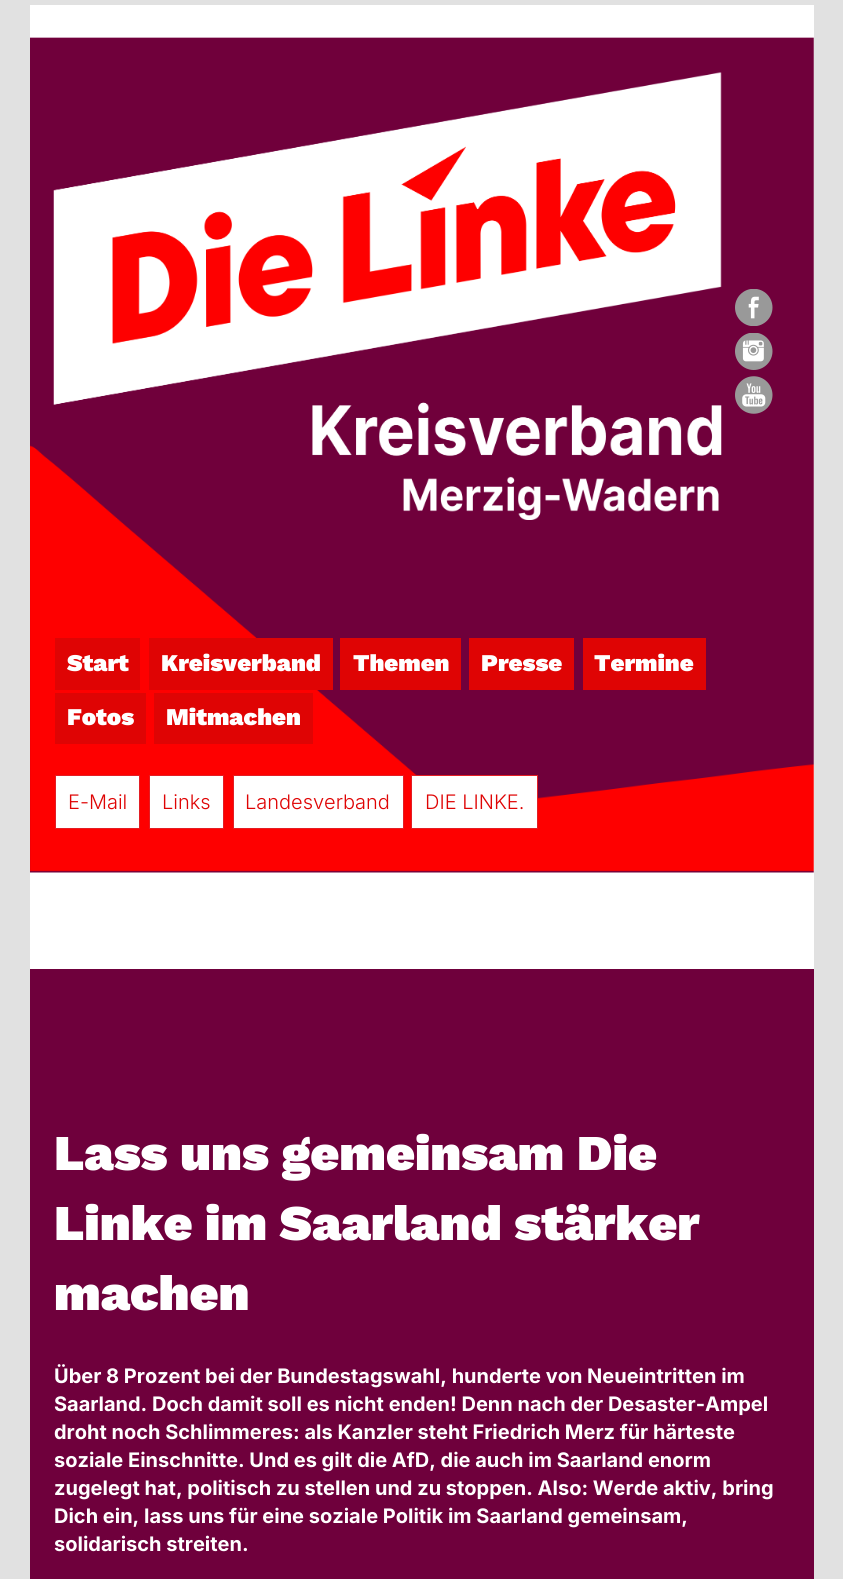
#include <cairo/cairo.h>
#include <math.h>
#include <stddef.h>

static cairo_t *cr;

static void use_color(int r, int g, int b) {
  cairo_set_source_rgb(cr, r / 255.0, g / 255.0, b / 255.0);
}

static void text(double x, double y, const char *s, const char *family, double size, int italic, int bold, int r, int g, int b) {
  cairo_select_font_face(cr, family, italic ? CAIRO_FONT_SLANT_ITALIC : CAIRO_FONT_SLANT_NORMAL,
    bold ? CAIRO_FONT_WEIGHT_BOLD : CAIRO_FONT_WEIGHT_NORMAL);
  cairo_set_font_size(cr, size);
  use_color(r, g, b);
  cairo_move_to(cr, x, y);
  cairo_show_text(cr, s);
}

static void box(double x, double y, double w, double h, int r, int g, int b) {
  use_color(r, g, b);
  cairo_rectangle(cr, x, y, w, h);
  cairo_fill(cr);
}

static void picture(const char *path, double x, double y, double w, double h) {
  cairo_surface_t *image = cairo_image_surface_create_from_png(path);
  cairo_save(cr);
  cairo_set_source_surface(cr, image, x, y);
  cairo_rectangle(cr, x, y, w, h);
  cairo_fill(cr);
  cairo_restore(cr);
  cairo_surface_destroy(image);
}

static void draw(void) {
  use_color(225, 225, 225);
  cairo_paint(cr);
  box(30, 5, 784, 964, 255, 255, 255);
  picture("img_01.png", 30, 37, 784, 836);
  picture("img_02.png", 53, 72, 669, 448);
  picture("img_03.png", 735, 289, 38, 37);
  picture("img_04.png", 735, 333, 38, 37);
  picture("img_05.png", 735, 376, 38, 38);
  box(55, 638, 85, 52, 223, 4, 4);
  box(149, 638, 184, 52, 223, 4, 4);
  box(340, 638, 121, 52, 223, 4, 4);
  box(469, 638, 105, 52, 223, 4, 4);
  box(583, 638, 123, 52, 223, 4, 4);
  box(55, 693, 91, 51, 223, 4, 4);
  box(154, 693, 159, 51, 223, 4, 4);
  use_color(255, 255, 255);
  cairo_rectangle(cr, 55.5, 775.5, 84, 53);
  cairo_fill_preserve(cr);
  use_color(227, 30, 36);
  cairo_set_line_width(cr, 1);
  cairo_stroke(cr);
  use_color(255, 255, 255);
  cairo_rectangle(cr, 149.5, 775.5, 74, 53);
  cairo_fill_preserve(cr);
  use_color(227, 30, 36);
  cairo_stroke(cr);
  use_color(255, 255, 255);
  cairo_rectangle(cr, 233.5, 775.5, 170, 53);
  cairo_fill_preserve(cr);
  use_color(227, 30, 36);
  cairo_stroke(cr);
  use_color(255, 255, 255);
  cairo_rectangle(cr, 411.5, 775.5, 126, 53);
  cairo_fill_preserve(cr);
  use_color(227, 30, 36);
  cairo_stroke(cr);
  box(30, 969, 784, 610, 111, 0, 60);
  text(67, 671, "Start", "Work Sans Black", 24, 0, 0, 255, 255, 255);
  text(161, 671, "Kreisverband", "Work Sans Black", 24, 0, 0, 255, 255, 255);
  text(353, 671, "Themen", "Work Sans Black", 24, 0, 0, 255, 255, 255);
  text(481, 671, "Presse", "Work Sans Black", 24, 0, 0, 255, 255, 255);
  text(594, 671, "Termine", "Work Sans Black", 24, 0, 0, 255, 255, 255);
  text(67, 725, "Fotos", "Work Sans Black", 24, 0, 0, 255, 255, 255);
  text(166, 725, "Mitmachen", "Work Sans Black", 24, 0, 0, 255, 255, 255);
  text(68, 809, "E-Mail", "Inter Light", 20, 0, 0, 223, 4, 4);
  text(162, 809, "Links", "Inter Light", 20, 0, 0, 223, 4, 4);
  text(245, 809, "Landesverband", "Inter Light", 20, 0, 0, 223, 4, 4);
  text(425, 809, "DIE LINKE.", "Inter Light", 20, 0, 0, 223, 4, 4);
  text(54, 1170, "Lass uns gemeinsam Die", "Work Sans Black", 50, 0, 0, 255, 255, 255);
  text(54, 1240, "Linke im Saarland stärker", "Work Sans Black", 50, 0, 0, 255, 255, 255);
  text(54, 1310, "machen", "Work Sans Black", 50, 0, 0, 255, 255, 255);
  text(54, 1383, "Über 8 Prozent bei der Bundestagswahl, hunderte von Neueintritten im", "Inter", 20, 0, 1, 255, 255, 255);
  text(54, 1411, "Saarland. Doch damit soll es nicht enden! Denn nach der Desaster-Ampel", "Inter", 20, 0, 1, 255, 255, 255);
  text(54, 1439, "droht noch Schlimmeres: als Kanzler steht Friedrich Merz für härteste", "Inter", 20, 0, 1, 255, 255, 255);
  text(54, 1467, "soziale Einschnitte. Und es gilt die AfD, die auch im Saarland enorm", "Inter", 20, 0, 1, 255, 255, 255);
  text(54, 1495, "zugelegt hat, politisch zu stellen und zu stoppen. Also: Werde aktiv, bring", "Inter", 20, 0, 1, 255, 255, 255);
  text(54, 1523, "Dich ein, lass uns für eine soziale Politik im Saarland gemeinsam,", "Inter", 20, 0, 1, 255, 255, 255);
  text(54, 1551, "solidarisch streiten.", "Inter", 20, 0, 1, 255, 255, 255);
}

int main(void) {
  cairo_surface_t *surface = cairo_image_surface_create(CAIRO_FORMAT_RGB24, 843, 1579);
  cr = cairo_create(surface);
  cairo_font_options_t *options = cairo_font_options_create();
  cairo_font_options_set_hint_metrics(options, CAIRO_HINT_METRICS_OFF);
  cairo_font_options_set_hint_style(options, CAIRO_HINT_STYLE_NONE);
  cairo_set_font_options(cr, options);
  cairo_set_miter_limit(cr, 4);
  draw();
  cairo_surface_write_to_png(surface, "out.png");
  cairo_font_options_destroy(options);
  cairo_destroy(cr);
  cairo_surface_destroy(surface);
  return 0;
}
